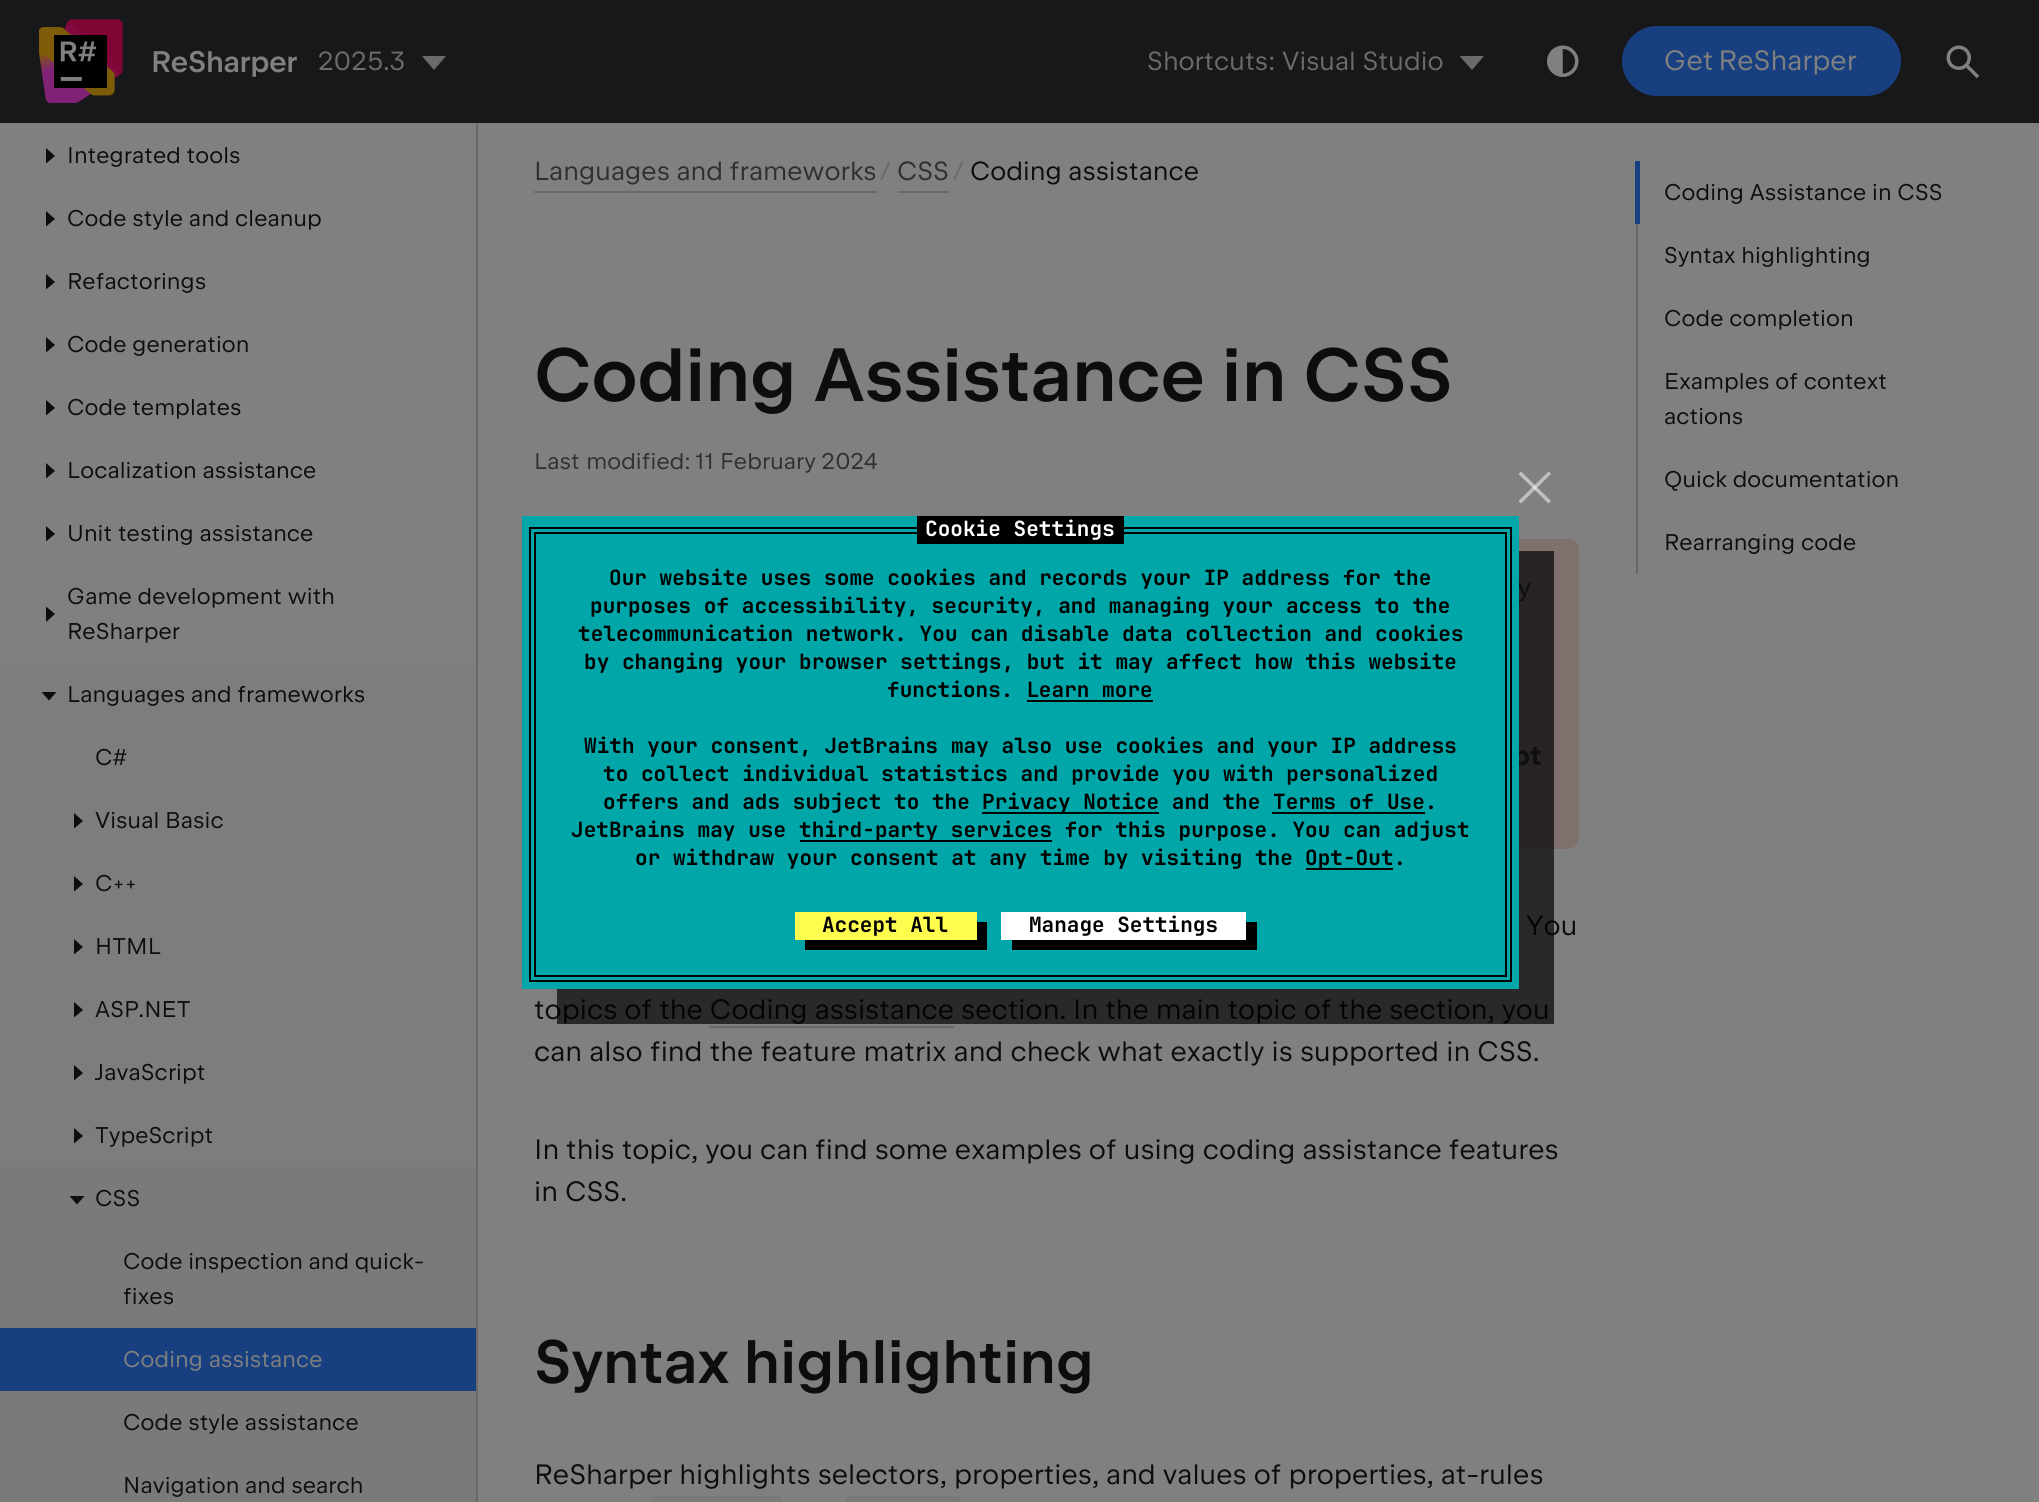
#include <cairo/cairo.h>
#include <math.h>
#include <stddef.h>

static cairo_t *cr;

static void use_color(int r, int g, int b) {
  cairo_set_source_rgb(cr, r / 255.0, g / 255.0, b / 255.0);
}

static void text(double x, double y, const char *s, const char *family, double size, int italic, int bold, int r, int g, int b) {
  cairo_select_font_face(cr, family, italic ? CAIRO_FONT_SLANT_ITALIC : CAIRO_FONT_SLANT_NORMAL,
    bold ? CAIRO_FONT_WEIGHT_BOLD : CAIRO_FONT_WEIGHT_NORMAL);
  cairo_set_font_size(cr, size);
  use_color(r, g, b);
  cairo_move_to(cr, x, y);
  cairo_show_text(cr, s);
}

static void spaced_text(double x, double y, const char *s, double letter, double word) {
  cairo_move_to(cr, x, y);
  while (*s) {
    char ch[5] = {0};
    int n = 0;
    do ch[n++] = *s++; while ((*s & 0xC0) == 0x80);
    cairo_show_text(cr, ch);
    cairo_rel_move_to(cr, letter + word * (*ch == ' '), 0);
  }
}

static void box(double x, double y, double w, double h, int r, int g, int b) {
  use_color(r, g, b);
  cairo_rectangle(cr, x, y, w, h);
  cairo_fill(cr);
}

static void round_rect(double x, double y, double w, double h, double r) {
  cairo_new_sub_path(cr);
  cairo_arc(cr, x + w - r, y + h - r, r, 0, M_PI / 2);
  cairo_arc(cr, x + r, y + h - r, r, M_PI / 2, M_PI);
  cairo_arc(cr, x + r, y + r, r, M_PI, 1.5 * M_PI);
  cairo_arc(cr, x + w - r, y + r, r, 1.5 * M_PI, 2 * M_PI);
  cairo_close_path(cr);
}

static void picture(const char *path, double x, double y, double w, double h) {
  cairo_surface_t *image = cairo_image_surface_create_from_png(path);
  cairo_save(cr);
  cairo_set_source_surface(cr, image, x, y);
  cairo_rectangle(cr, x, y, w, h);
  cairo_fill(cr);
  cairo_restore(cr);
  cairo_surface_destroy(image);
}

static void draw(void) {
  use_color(128, 128, 128);
  cairo_paint(cr);
  box(0, 0, 2039, 123, 24, 24, 26);
  picture("img_01.png", 39, 19, 84, 84);
  use_color(107, 107, 107);
  cairo_new_path(cr);
  cairo_move_to(cr, 434, 70);
  cairo_line_to(cr, 422, 56);
  cairo_line_to(cr, 446, 56);
  cairo_close_path(cr);
  cairo_fill(cr);
  cairo_new_path(cr);
  cairo_move_to(cr, 1472, 70);
  cairo_line_to(cr, 1459.5, 56);
  cairo_line_to(cr, 1484, 56);
  cairo_close_path(cr);
  cairo_fill(cr);
  picture("img_02.png", 1547, 45, 32, 32);
  use_color(24, 64, 128);
  round_rect(1622, 26, 279, 70, 35);
  cairo_fill(cr);
  picture("img_03.png", 1946, 45, 34, 34);
  box(476, 123, 2, 1379, 105, 105, 105);
  use_color(13, 13, 14);
  cairo_new_path(cr);
  cairo_move_to(cr, 55, 156);
  cairo_line_to(cr, 46, 163.5);
  cairo_line_to(cr, 46, 148);
  cairo_close_path(cr);
  cairo_fill(cr);
  cairo_new_path(cr);
  cairo_move_to(cr, 55, 219);
  cairo_line_to(cr, 46, 226.5);
  cairo_line_to(cr, 46, 211);
  cairo_close_path(cr);
  cairo_fill(cr);
  cairo_new_path(cr);
  cairo_move_to(cr, 55, 282);
  cairo_line_to(cr, 46, 289.5);
  cairo_line_to(cr, 46, 274);
  cairo_close_path(cr);
  cairo_fill(cr);
  cairo_new_path(cr);
  cairo_move_to(cr, 55, 345);
  cairo_line_to(cr, 46, 352.5);
  cairo_line_to(cr, 46, 337);
  cairo_close_path(cr);
  cairo_fill(cr);
  cairo_new_path(cr);
  cairo_move_to(cr, 55, 408);
  cairo_line_to(cr, 46, 415.5);
  cairo_line_to(cr, 46, 400);
  cairo_close_path(cr);
  cairo_fill(cr);
  cairo_new_path(cr);
  cairo_move_to(cr, 55, 471);
  cairo_line_to(cr, 46, 478.5);
  cairo_line_to(cr, 46, 463);
  cairo_close_path(cr);
  cairo_fill(cr);
  cairo_new_path(cr);
  cairo_move_to(cr, 55, 534);
  cairo_line_to(cr, 46, 541.5);
  cairo_line_to(cr, 46, 526);
  cairo_close_path(cr);
  cairo_fill(cr);
  cairo_new_path(cr);
  cairo_move_to(cr, 55, 614);
  cairo_line_to(cr, 46, 622);
  cairo_line_to(cr, 46, 606.5);
  cairo_close_path(cr);
  cairo_fill(cr);
  box(0, 663, 476, 504, 125, 125, 125);
  use_color(13, 13, 14);
  cairo_new_path(cr);
  cairo_move_to(cr, 49, 700.5);
  cairo_line_to(cr, 41.5, 692);
  cairo_line_to(cr, 56.5, 692);
  cairo_close_path(cr);
  cairo_fill(cr);
  cairo_new_path(cr);
  cairo_move_to(cr, 83, 821);
  cairo_line_to(cr, 74, 828.5);
  cairo_line_to(cr, 74, 813);
  cairo_close_path(cr);
  cairo_fill(cr);
  cairo_new_path(cr);
  cairo_move_to(cr, 83, 884);
  cairo_line_to(cr, 74, 891.5);
  cairo_line_to(cr, 74, 876);
  cairo_close_path(cr);
  cairo_fill(cr);
  cairo_new_path(cr);
  cairo_move_to(cr, 83, 947);
  cairo_line_to(cr, 74, 954.5);
  cairo_line_to(cr, 74, 939);
  cairo_close_path(cr);
  cairo_fill(cr);
  cairo_new_path(cr);
  cairo_move_to(cr, 83, 1010);
  cairo_line_to(cr, 74, 1017.5);
  cairo_line_to(cr, 74, 1002);
  cairo_close_path(cr);
  cairo_fill(cr);
  cairo_new_path(cr);
  cairo_move_to(cr, 83, 1073);
  cairo_line_to(cr, 74, 1080.5);
  cairo_line_to(cr, 74, 1065);
  cairo_close_path(cr);
  cairo_fill(cr);
  cairo_new_path(cr);
  cairo_move_to(cr, 83, 1136);
  cairo_line_to(cr, 74, 1143.5);
  cairo_line_to(cr, 74, 1128);
  cairo_close_path(cr);
  cairo_fill(cr);
  box(0, 1167, 476, 161, 122, 122, 122);
  use_color(13, 13, 14);
  cairo_new_path(cr);
  cairo_move_to(cr, 77, 1204.5);
  cairo_line_to(cr, 69.5, 1196);
  cairo_line_to(cr, 84.5, 1196);
  cairo_close_path(cr);
  cairo_fill(cr);
  box(0, 1328, 476, 63, 24, 64, 128);
  box(0, 1391, 476, 111, 122, 122, 122);
  box(534, 191, 343, 2, 105, 105, 105);
  box(898, 191, 51, 2, 105, 105, 105);
  use_color(127, 112, 110);
  round_rect(534, 539, 1045, 310, 11);
  cairo_fill(cr);
  box(709, 1026, 245, 2, 105, 105, 105);
  use_color(122, 122, 122);
  cairo_new_path(cr);
  cairo_move_to(cr, 656, 1496);
  cairo_line_to(cr, 777, 1496);
  cairo_curve_to(cr, 780, 1496, 782, 1498, 782, 1501);
  cairo_line_to(cr, 782, 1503);
  cairo_line_to(cr, 651, 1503);
  cairo_line_to(cr, 651, 1501);
  cairo_curve_to(cr, 651, 1498, 653, 1496, 656, 1496);
  cairo_close_path(cr);
  cairo_fill(cr);
  cairo_new_path(cr);
  cairo_move_to(cr, 850, 1496);
  cairo_line_to(cr, 956, 1496);
  cairo_curve_to(cr, 959, 1496, 961, 1498, 961, 1501);
  cairo_line_to(cr, 961, 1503);
  cairo_line_to(cr, 845, 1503);
  cairo_line_to(cr, 845, 1501);
  cairo_curve_to(cr, 845, 1498, 847, 1496, 850, 1496);
  cairo_close_path(cr);
  cairo_fill(cr);
  box(1635, 161, 5, 63, 24, 64, 128);
  box(1636, 224, 2, 350, 105, 105, 105);
  use_color(191, 191, 191);
  cairo_new_path(cr);
  cairo_move_to(cr, 1518.5, 501);
  cairo_line_to(cr, 1548.5, 471.5);
  cairo_line_to(cr, 1551, 474);
  cairo_line_to(cr, 1521, 503.5);
  cairo_close_path(cr);
  cairo_fill(cr);
  cairo_set_source_rgba(cr, 1, 1, 1, 0.5);
  cairo_new_path(cr);
  cairo_move_to(cr, 1521, 471.5);
  cairo_line_to(cr, 1551, 501);
  cairo_line_to(cr, 1548.5, 503.5);
  cairo_line_to(cr, 1518.5, 474);
  cairo_close_path(cr);
  cairo_fill(cr);
  cairo_select_font_face(cr, "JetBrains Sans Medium", CAIRO_FONT_SLANT_NORMAL, CAIRO_FONT_WEIGHT_NORMAL);
  cairo_set_font_size(cr, 29.75);
  use_color(128, 128, 128);
  spaced_text(151, 72, "ReSharper", -0.25, 0);
  cairo_select_font_face(cr, "JetBrains Sans", CAIRO_FONT_SLANT_NORMAL, CAIRO_FONT_WEIGHT_NORMAL);
  cairo_set_font_size(cr, 26.25);
  use_color(107, 107, 107);
  spaced_text(318, 70, "2025.3", 0.05, 0);
  spaced_text(1147, 70, "Shortcuts:", 0.05, 0);
  spaced_text(1282, 70, "Visual Studio", 0.05, 0);
  cairo_set_font_size(cr, 28);
  use_color(128, 128, 128);
  spaced_text(1664, 70, "Get ReSharper", 0.05, -2);
  cairo_set_font_size(cr, 22.75);
  use_color(13, 13, 14);
  spaced_text(67, 163, "Integrated tools", 0.1, 0);
  spaced_text(67, 226, "Code style and cleanup", 0.1, 0);
  spaced_text(67, 289, "Refactorings", 0.1, 0);
  spaced_text(67, 352, "Code generation", 0.1, 0);
  spaced_text(67, 415, "Code templates", 0.1, 0);
  spaced_text(67, 478, "Localization assistance", 0.1, 0);
  spaced_text(67, 541, "Unit testing assistance", 0.1, 0);
  spaced_text(67, 604, "Game development with", 0.1, 0);
  spaced_text(67, 639, "ReSharper", 0.1, 0);
  spaced_text(67, 702, "Languages and frameworks", 0.1, 0);
  spaced_text(95, 765, "C#", 0.1, 0);
  spaced_text(95, 828, "Visual Basic", 0.1, 0);
  spaced_text(95, 891, "C++", 0.1, 0);
  spaced_text(95, 954, "HTML", 0.1, 0);
  spaced_text(95, 1017, "ASP.NET", 0.1, 0);
  spaced_text(95, 1080, "JavaScript", 0.1, 0);
  spaced_text(95, 1143, "TypeScript", 0.1, 0);
  spaced_text(95, 1206, "CSS", 0.1, 0);
  spaced_text(123, 1269, "Code inspection and quick-", 0.1, 0);
  spaced_text(123, 1304, "fixes", 0.1, 0);
  use_color(128, 128, 128);
  spaced_text(123, 1367, "Coding assistance", 0.1, 0);
  use_color(13, 13, 14);
  spaced_text(123, 1430, "Code style assistance", 0.1, 0);
  spaced_text(123, 1493, "Navigation and search", 0.1, 0);
  cairo_set_font_size(cr, 26.25);
  use_color(47, 47, 48);
  spaced_text(534, 180, "Languages and frameworks", 0.05, 0);
  use_color(107, 107, 107);
  spaced_text(880, 180, "/", 0.05, 0);
  use_color(47, 47, 48);
  spaced_text(897, 180, "CSS", 0.05, 0);
  use_color(107, 107, 107);
  spaced_text(953, 180, "/", 0.05, 0);
  use_color(13, 13, 14);
  spaced_text(970, 180, "Coding assistance", 0.05, 0);
  cairo_select_font_face(cr, "JetBrains Sans Medium", CAIRO_FONT_SLANT_NORMAL, CAIRO_FONT_WEIGHT_NORMAL);
  cairo_set_font_size(cr, 75.25);
  spaced_text(534, 401, "Coding Assistance in CSS", -0.1, 0);
  cairo_select_font_face(cr, "JetBrains Sans", CAIRO_FONT_SLANT_NORMAL, CAIRO_FONT_WEIGHT_NORMAL);
  cairo_set_font_size(cr, 22.75);
  use_color(47, 47, 48);
  spaced_text(534, 469, "Last modified:", 0.1, 1);
  spaced_text(695, 469, "11 February 2024", 0.1, 0);
  cairo_set_font_size(cr, 28);
  spaced_text(1517, 597, "y", 0.05, 0);
  cairo_select_font_face(cr, "JetBrains Sans SemiBold", CAIRO_FONT_SLANT_NORMAL, CAIRO_FONT_WEIGHT_NORMAL);
  spaced_text(1512, 765, "pt", 0.05, 0);
  cairo_select_font_face(cr, "JetBrains Sans", CAIRO_FONT_SLANT_NORMAL, CAIRO_FONT_WEIGHT_NORMAL);
  use_color(13, 13, 14);
  spaced_text(1526, 935, "You", 0.05, 0);
  spaced_text(534, 1019, "topics of the Coding assistance section. In the main topic of the section, you", 0.05, 0);
  spaced_text(534, 1061, "can also find the feature matrix and check what exactly is supported in CSS.", 0.05, 0.25);
  spaced_text(534, 1159, "In this topic, you can find some examples of using coding assistance features", 0.05, 0);
  spaced_text(534, 1201, "in CSS.", 0.05, 0);
  cairo_select_font_face(cr, "JetBrains Sans Medium", CAIRO_FONT_SLANT_NORMAL, CAIRO_FONT_WEIGHT_NORMAL);
  cairo_set_font_size(cr, 61.25);
  spaced_text(534, 1383, "Syntax highlighting", 0.05, 0);
  cairo_select_font_face(cr, "JetBrains Sans", CAIRO_FONT_SLANT_NORMAL, CAIRO_FONT_WEIGHT_NORMAL);
  cairo_set_font_size(cr, 28);
  spaced_text(534, 1484, "ReSharper highlights selectors, properties, and values of properties, at-rules", 0.05, 0);
  cairo_set_font_size(cr, 22.75);
  spaced_text(1664, 200, "Coding Assistance in CSS", 0.1, 0);
  spaced_text(1664, 263, "Syntax highlighting", 0.1, 0);
  spaced_text(1664, 326, "Code completion", 0.1, 0);
  spaced_text(1664, 389, "Examples of context", 0.1, 0);
  spaced_text(1664, 424, "actions", 0.1, 0);
  spaced_text(1664, 487, "Quick documentation", 0.1, 0);
  spaced_text(1664, 550, "Rearranging code", 0.1, 0);
  cairo_set_source_rgba(cr, 0, 0, 0, 0.68);
  cairo_new_path(cr);
  cairo_move_to(cr, 557, 989);
  cairo_line_to(cr, 557, 1024);
  cairo_line_to(cr, 1554, 1024);
  cairo_line_to(cr, 1554, 551);
  cairo_line_to(cr, 1519, 551);
  cairo_line_to(cr, 1519, 989);
  cairo_close_path(cr);
  cairo_fill(cr);
  box(522, 516, 997, 473, 1, 167, 168);
  box(534, 532, 973, 2, 0, 0, 0);
  box(1505, 532, 2, 445, 0, 0, 0);
  box(534, 532, 2, 380, 0, 0, 0);
  box(529, 527, 983, 2, 0, 0, 0);
  box(917, 516, 207, 28, 0, 0, 0);
  cairo_select_font_face(cr, "JetBrains Mono", CAIRO_FONT_SLANT_NORMAL, CAIRO_FONT_WEIGHT_BOLD);
  cairo_set_font_size(cr, 21);
  use_color(255, 255, 255);
  spaced_text(925, 536, "Cookie Settings", 0.05, 0);
  box(1510, 527, 2, 455, 0, 0, 0);
  box(529, 527, 2, 383, 0, 0, 0);
  spaced_text(609, 585, "Our website uses some cookies and records your IP address for the", 0.05, 0);
  spaced_text(590, 613, "purposes of accessibility, security, and managing your access to the", 0.05, 0);
  spaced_text(578, 641, "telecommunication network. You can disable data collection and cookies", 0.05, 0);
  spaced_text(584, 669, "by changing your browser settings, but it may affect how this website", 0.05, 0);
  spaced_text(887, 697, "functions. Learn more", 0.05, 0);
  box(1027, 700, 126, 2, 0, 0, 0);
  spaced_text(584, 753, "With your consent, JetBrains may also use cookies and your IP address", 0.05, 0);
  spaced_text(603, 781, "to collect individual statistics and provide you with personalized", 0.05, 0);
  spaced_text(603, 809, "offers and ads subject to the", 0.05, 0);
  box(982, 812, 177, 2, 0, 0, 0);
  spaced_text(982, 809, "Privacy Notice and the Terms of Use.", 0.05, 0);
  box(1272, 812, 153, 2, 0, 0, 0);
  spaced_text(571, 837, "JetBrains may use", 0.05, 0);
  box(800, 840, 252, 2, 0, 0, 0);
  spaced_text(799, 837, "third-party services for this purpose. You can adjust", 0.05, 0);
  spaced_text(635, 865, "or withdraw your consent at any time by visiting the", 0.05, 0);
  box(1306, 868, 87, 2, 0, 0, 0);
  spaced_text(1305, 865, "Opt-Out.", 0.05, 0);
  box(534, 975, 973, 2, 0, 0, 0);
  box(534, 912, 2, 65, 0, 0, 0);
  box(529, 980, 983, 2, 0, 0, 0);
  box(529, 910, 2, 72, 0, 0, 0);
  cairo_new_path(cr);
  cairo_move_to(cr, 805, 940);
  cairo_line_to(cr, 805, 950);
  cairo_line_to(cr, 987, 950);
  cairo_line_to(cr, 987, 922);
  cairo_line_to(cr, 976, 922);
  cairo_line_to(cr, 976, 940);
  cairo_close_path(cr);
  cairo_fill(cr);
  box(795, 912, 182, 28, 254, 252, 79);
  text(822, 932, "Accept All", "JetBrains Mono", 21, 0, 1, 0, 0, 0);
  cairo_new_path(cr);
  cairo_move_to(cr, 1012, 940);
  cairo_line_to(cr, 1012, 950);
  cairo_line_to(cr, 1257, 950);
  cairo_line_to(cr, 1257, 922);
  cairo_line_to(cr, 1246, 922);
  cairo_line_to(cr, 1246, 940);
  cairo_close_path(cr);
  cairo_fill(cr);
  box(1001, 912, 245, 28, 255, 255, 255);
  text(1029, 932, "Manage Settings", "JetBrains Mono", 21, 0, 1, 0, 0, 0);
}

int main(void) {
  cairo_surface_t *surface = cairo_image_surface_create(CAIRO_FORMAT_RGB24, 2039, 1502);
  cr = cairo_create(surface);
  cairo_font_options_t *options = cairo_font_options_create();
  cairo_font_options_set_hint_metrics(options, CAIRO_HINT_METRICS_OFF);
  cairo_font_options_set_hint_style(options, CAIRO_HINT_STYLE_NONE);
  cairo_set_font_options(cr, options);
  cairo_set_miter_limit(cr, 4);
  draw();
  cairo_surface_write_to_png(surface, "out.png");
  cairo_font_options_destroy(options);
  cairo_destroy(cr);
  cairo_surface_destroy(surface);
  return 0;
}
